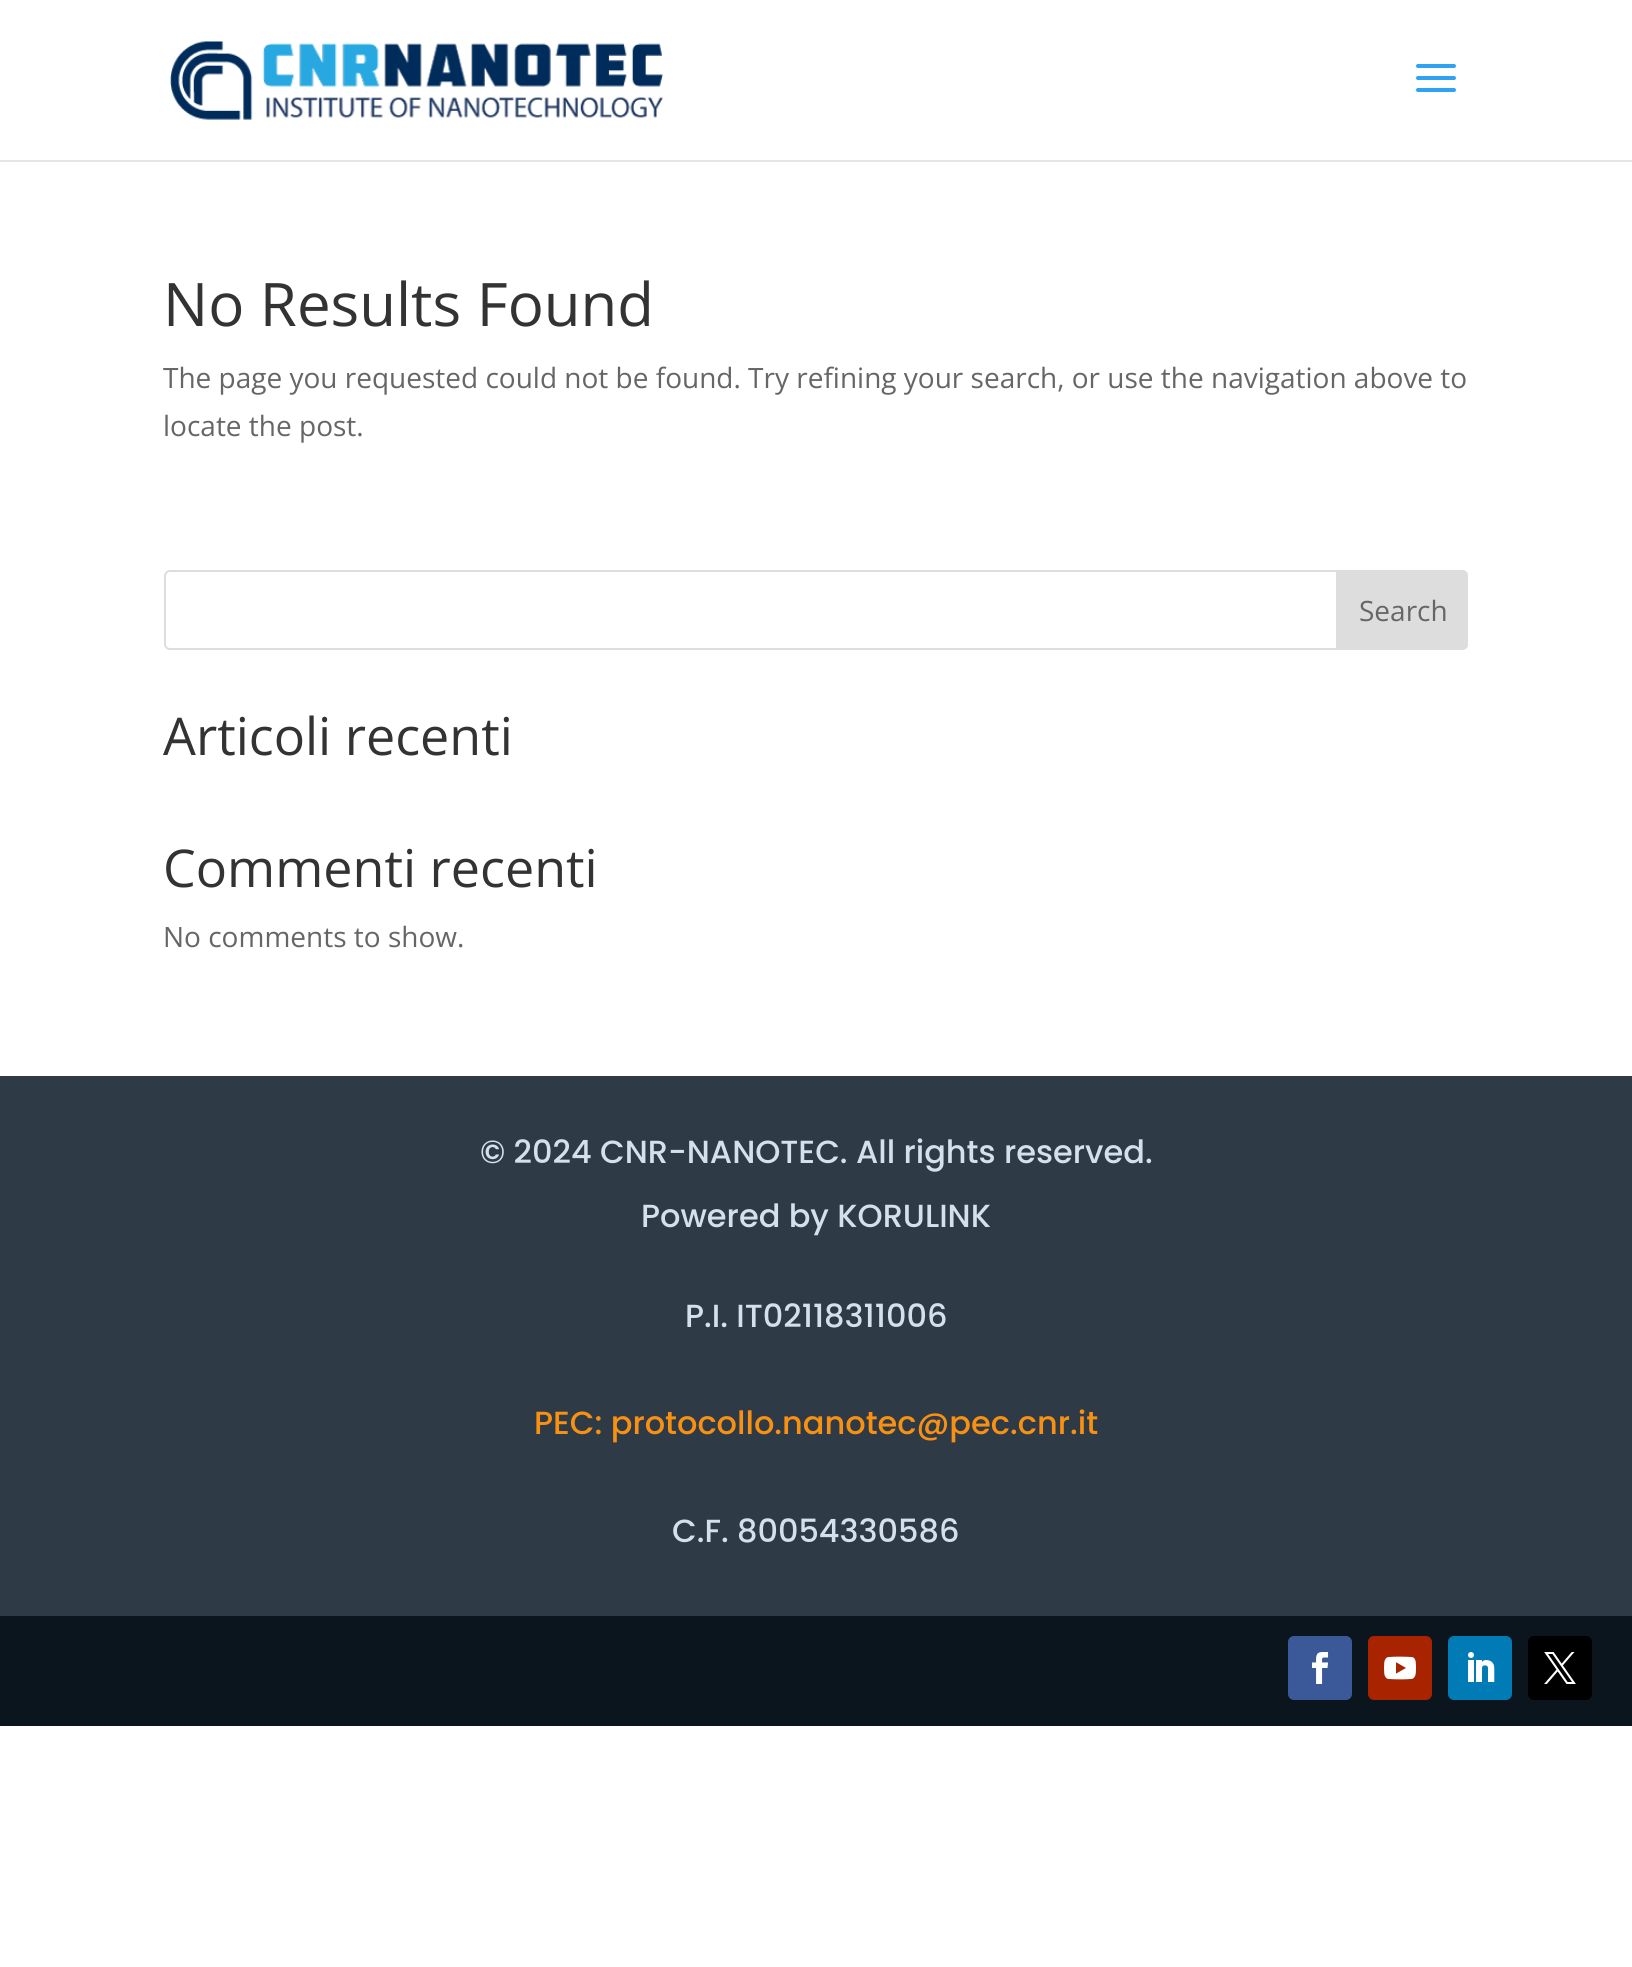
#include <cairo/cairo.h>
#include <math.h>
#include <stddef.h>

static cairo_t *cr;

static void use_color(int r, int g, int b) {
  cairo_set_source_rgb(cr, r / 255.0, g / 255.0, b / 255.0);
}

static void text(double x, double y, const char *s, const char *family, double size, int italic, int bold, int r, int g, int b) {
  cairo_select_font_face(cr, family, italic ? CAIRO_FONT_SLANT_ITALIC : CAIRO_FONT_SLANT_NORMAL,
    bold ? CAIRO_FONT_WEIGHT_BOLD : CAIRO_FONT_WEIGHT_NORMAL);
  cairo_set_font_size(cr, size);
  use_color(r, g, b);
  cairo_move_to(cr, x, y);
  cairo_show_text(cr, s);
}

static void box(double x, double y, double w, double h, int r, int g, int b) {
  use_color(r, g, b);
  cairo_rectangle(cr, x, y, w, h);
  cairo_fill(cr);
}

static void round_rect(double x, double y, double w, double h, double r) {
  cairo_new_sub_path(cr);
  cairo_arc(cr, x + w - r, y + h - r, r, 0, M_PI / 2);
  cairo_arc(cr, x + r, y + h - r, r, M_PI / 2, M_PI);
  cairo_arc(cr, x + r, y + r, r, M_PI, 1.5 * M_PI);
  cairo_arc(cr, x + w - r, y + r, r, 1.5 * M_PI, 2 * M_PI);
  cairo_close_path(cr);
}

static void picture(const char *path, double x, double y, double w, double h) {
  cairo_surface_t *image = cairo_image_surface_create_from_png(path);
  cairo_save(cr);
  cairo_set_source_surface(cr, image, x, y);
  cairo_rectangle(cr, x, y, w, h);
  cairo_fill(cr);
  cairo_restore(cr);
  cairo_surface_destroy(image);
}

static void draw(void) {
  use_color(255, 255, 255);
  cairo_paint(cr);
  box(0, 160, 1632, 2, 230, 230, 230);
  picture("img_01.png", 170, 41, 493, 79);
  picture("img_02.png", 1416, 64, 40, 28);
  round_rect(165, 571, 1302, 78, 5);
  use_color(221, 221, 221);
  cairo_stroke(cr);
  cairo_new_path(cr);
  cairo_move_to(cr, 1337, 571);
  cairo_line_to(cr, 1462, 571);
  cairo_curve_to(cr, 1465, 571, 1467, 573, 1467, 576);
  cairo_line_to(cr, 1467, 644);
  cairo_curve_to(cr, 1467, 647, 1465, 649, 1462, 649);
  cairo_line_to(cr, 1337, 649);
  cairo_close_path(cr);
  cairo_fill_preserve(cr);
  cairo_stroke(cr);
  box(0, 1076, 1632, 540, 46, 59, 71);
  box(0, 1616, 1632, 110, 11, 21, 30);
  use_color(59, 89, 152);
  round_rect(1288, 1636, 64, 64, 6);
  cairo_fill(cr);
  picture("img_03.png", 1312, 1652, 17, 32);
  use_color(168, 36, 0);
  round_rect(1368, 1636, 64, 64, 6);
  cairo_fill(cr);
  picture("img_04.png", 1384, 1656, 32, 24);
  use_color(0, 123, 182);
  round_rect(1448, 1636, 64, 64, 6);
  cairo_fill(cr);
  picture("img_05.png", 1468, 1652, 27, 30);
  use_color(0, 0, 0);
  round_rect(1528, 1636, 64, 64, 6);
  cairo_fill(cr);
  picture("img_06.png", 1544, 1652, 32, 32);
  text(163, 326, "No Results Found", "Open Sans", 60, 0, 0, 51, 51, 51);
  text(163, 388, "The page you requested could not be found. Try refining your search, or use the navigation above to", "Open Sans", 28, 0, 0, 102, 102, 102);
  text(163, 436, "locate the post.", "Open Sans", 28, 0, 0, 102, 102, 102);
  text(1359, 621, "Search", "Open Sans", 28, 0, 0, 102, 102, 102);
  text(163, 755, "Articoli recenti", "Open Sans", 52, 0, 0, 51, 51, 51);
  text(163, 887, "Commenti recenti", "Open Sans", 52, 0, 0, 51, 51, 51);
  text(163, 947, "No comments to show.", "Open Sans", 28, 0, 0, 102, 102, 102);
  text(480, 1163, "© 2024 CNR-NANOTEC. All rights reserved.", "Poppins Medium", 32, 0, 0, 213, 224, 236);
  text(641, 1227, "Powered by KORULINK", "Poppins Medium", 32, 0, 0, 213, 224, 236);
  text(685, 1327, "P.I. IT02118311006", "Poppins Medium", 32, 0, 0, 213, 224, 236);
  text(534, 1434, "PEC: protocollo.nanotec@pec.cnr.it", "Poppins Medium", 32, 0, 0, 248, 144, 18);
  text(672, 1542, "C.F. 80054330586", "Poppins Medium", 32, 0, 0, 213, 224, 236);
}

int main(void) {
  cairo_surface_t *surface = cairo_image_surface_create(CAIRO_FORMAT_RGB24, 1632, 1967);
  cr = cairo_create(surface);
  cairo_font_options_t *options = cairo_font_options_create();
  cairo_font_options_set_hint_metrics(options, CAIRO_HINT_METRICS_OFF);
  cairo_font_options_set_hint_style(options, CAIRO_HINT_STYLE_NONE);
  cairo_set_font_options(cr, options);
  cairo_set_miter_limit(cr, 4);
  draw();
  cairo_surface_write_to_png(surface, "out.png");
  cairo_font_options_destroy(options);
  cairo_destroy(cr);
  cairo_surface_destroy(surface);
  return 0;
}
